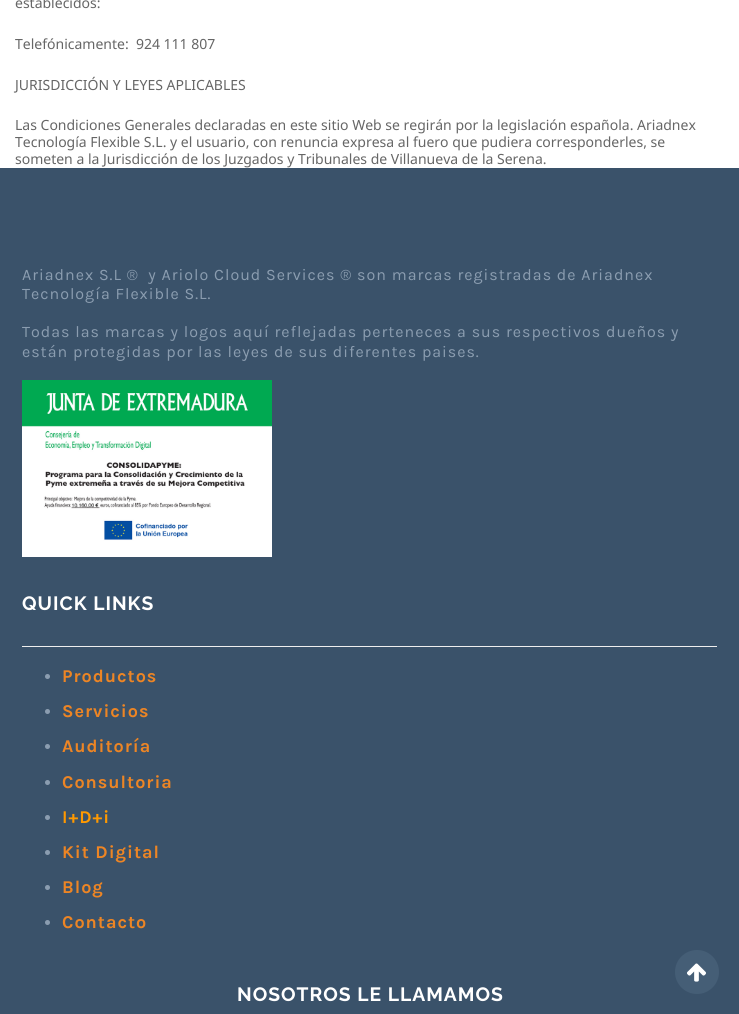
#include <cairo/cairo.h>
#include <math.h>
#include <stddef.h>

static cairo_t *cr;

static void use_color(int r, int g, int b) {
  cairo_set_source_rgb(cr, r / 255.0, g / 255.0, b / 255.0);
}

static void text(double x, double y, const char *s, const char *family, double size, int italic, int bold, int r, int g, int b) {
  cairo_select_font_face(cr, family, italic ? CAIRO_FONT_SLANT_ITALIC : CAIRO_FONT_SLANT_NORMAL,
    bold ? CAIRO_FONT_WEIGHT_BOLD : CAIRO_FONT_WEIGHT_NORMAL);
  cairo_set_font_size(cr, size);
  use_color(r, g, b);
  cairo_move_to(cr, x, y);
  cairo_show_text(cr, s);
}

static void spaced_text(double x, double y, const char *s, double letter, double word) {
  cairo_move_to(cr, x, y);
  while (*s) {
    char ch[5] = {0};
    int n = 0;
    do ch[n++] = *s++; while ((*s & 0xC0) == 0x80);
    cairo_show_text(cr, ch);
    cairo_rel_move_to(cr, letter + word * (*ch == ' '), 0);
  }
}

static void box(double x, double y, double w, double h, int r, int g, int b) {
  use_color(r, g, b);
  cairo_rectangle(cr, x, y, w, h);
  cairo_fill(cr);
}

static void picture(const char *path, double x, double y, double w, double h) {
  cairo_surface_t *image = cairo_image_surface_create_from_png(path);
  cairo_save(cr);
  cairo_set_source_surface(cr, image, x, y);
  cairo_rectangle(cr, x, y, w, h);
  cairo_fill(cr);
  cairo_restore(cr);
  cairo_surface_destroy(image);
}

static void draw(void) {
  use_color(255, 255, 255);
  cairo_paint(cr);
  box(0, 168, 739, 846, 58, 82, 106);
  picture("img_01.png", 22, 380, 250, 177);
  box(22, 646, 695, 1, 238, 238, 238);
  use_color(139, 157, 176);
  cairo_arc(cr, 47.5, 676.5, 2.5, 0, 2 * M_PI);
  cairo_fill(cr);
  cairo_arc(cr, 47.5, 711.5, 2.5, 0, 2 * M_PI);
  cairo_fill(cr);
  cairo_arc(cr, 47.5, 746.5, 2.5, 0, 2 * M_PI);
  cairo_fill(cr);
  cairo_arc(cr, 47.5, 782.5, 2.5, 0, 2 * M_PI);
  cairo_fill(cr);
  cairo_arc(cr, 47.5, 817.5, 2.5, 0, 2 * M_PI);
  cairo_fill(cr);
  cairo_arc(cr, 47.5, 852.5, 2.5, 0, 2 * M_PI);
  cairo_fill(cr);
  cairo_arc(cr, 47.5, 887.5, 2.5, 0, 2 * M_PI);
  cairo_fill(cr);
  cairo_arc(cr, 47.5, 922.5, 2.5, 0, 2 * M_PI);
  cairo_fill(cr);
  use_color(69, 94, 118);
  cairo_arc(cr, 697, 972, 22, 0, 2 * M_PI);
  cairo_fill(cr);
  picture("img_02.png", 687, 963, 19, 19);
  text(15, 8, "establecidos:", "Noto Sans", 14, 0, 0, 102, 102, 102);
  text(15, 49, "Telefónicamente:  924 111 807", "Noto Sans", 14, 0, 0, 102, 102, 102);
  text(15, 90, "JURISDICCIÓN Y LEYES APLICABLES", "Noto Sans", 14, 0, 0, 102, 102, 102);
  text(15, 130, "Las Condiciones Generales declaradas en este sitio Web se regirán por la legislación española. Ariadnex", "Noto Sans", 14, 0, 0, 102, 102, 102);
  text(15, 147, "Tecnología Flexible S.L. y el usuario, con renuncia expresa al fuero que pudiera corresponderles, se", "Noto Sans", 14, 0, 0, 102, 102, 102);
  text(15, 164, "someten a la Jurisdicción de los Juzgados y Tribunales de Villanueva de la Serena.", "Noto Sans", 14, 0, 0, 102, 102, 102);
  cairo_select_font_face(cr, "Karla", CAIRO_FONT_SLANT_NORMAL, CAIRO_FONT_WEIGHT_NORMAL);
  cairo_set_font_size(cr, 16);
  use_color(139, 157, 176);
  spaced_text(22, 280, "Ariadnex S.L ®  y Ariolo Cloud Services ® son marcas registradas de Ariadnex", 1, 0);
  spaced_text(22, 299, "Tecnología Flexible S.L.", 1, 0);
  spaced_text(22, 337, "Todas las marcas y logos aquí reflejadas perteneces a sus respectivos dueños y", 1, 0);
  spaced_text(22, 357, "están protegidas por las leyes de sus diferentes paises.", 1, 0);
  cairo_select_font_face(cr, "Raleway", CAIRO_FONT_SLANT_NORMAL, CAIRO_FONT_WEIGHT_BOLD);
  cairo_set_font_size(cr, 19.25);
  use_color(255, 255, 255);
  spaced_text(22, 610, "QUICK LINKS", 1, 0);
  cairo_select_font_face(cr, "Karla", CAIRO_FONT_SLANT_NORMAL, CAIRO_FONT_WEIGHT_BOLD);
  cairo_set_font_size(cr, 18);
  use_color(237, 133, 36);
  spaced_text(62, 682, "Productos", 1, 0);
  spaced_text(62, 717, "Servicios", 1, 0);
  spaced_text(62, 752, "Auditoría", 1, 0);
  spaced_text(62, 788, "Consultoria", 1, 0);
  use_color(255, 153, 0);
  spaced_text(62, 823, "I+D+i", 1, 0);
  use_color(237, 133, 36);
  spaced_text(62, 858, "Kit Digital", 1, 0);
  spaced_text(62, 893, "Blog", 1, 0);
  spaced_text(62, 928, "Contacto", 1, 0);
  cairo_select_font_face(cr, "Raleway", CAIRO_FONT_SLANT_NORMAL, CAIRO_FONT_WEIGHT_BOLD);
  cairo_set_font_size(cr, 19.25);
  use_color(255, 255, 255);
  spaced_text(237, 1001, "NOSOTROS LE LLAMAMOS", 1, 0);
}

int main(void) {
  cairo_surface_t *surface = cairo_image_surface_create(CAIRO_FORMAT_RGB24, 739, 1014);
  cr = cairo_create(surface);
  cairo_font_options_t *options = cairo_font_options_create();
  cairo_font_options_set_hint_metrics(options, CAIRO_HINT_METRICS_OFF);
  cairo_font_options_set_hint_style(options, CAIRO_HINT_STYLE_NONE);
  cairo_set_font_options(cr, options);
  cairo_set_miter_limit(cr, 4);
  draw();
  cairo_surface_write_to_png(surface, "out.png");
  cairo_font_options_destroy(options);
  cairo_destroy(cr);
  cairo_surface_destroy(surface);
  return 0;
}
